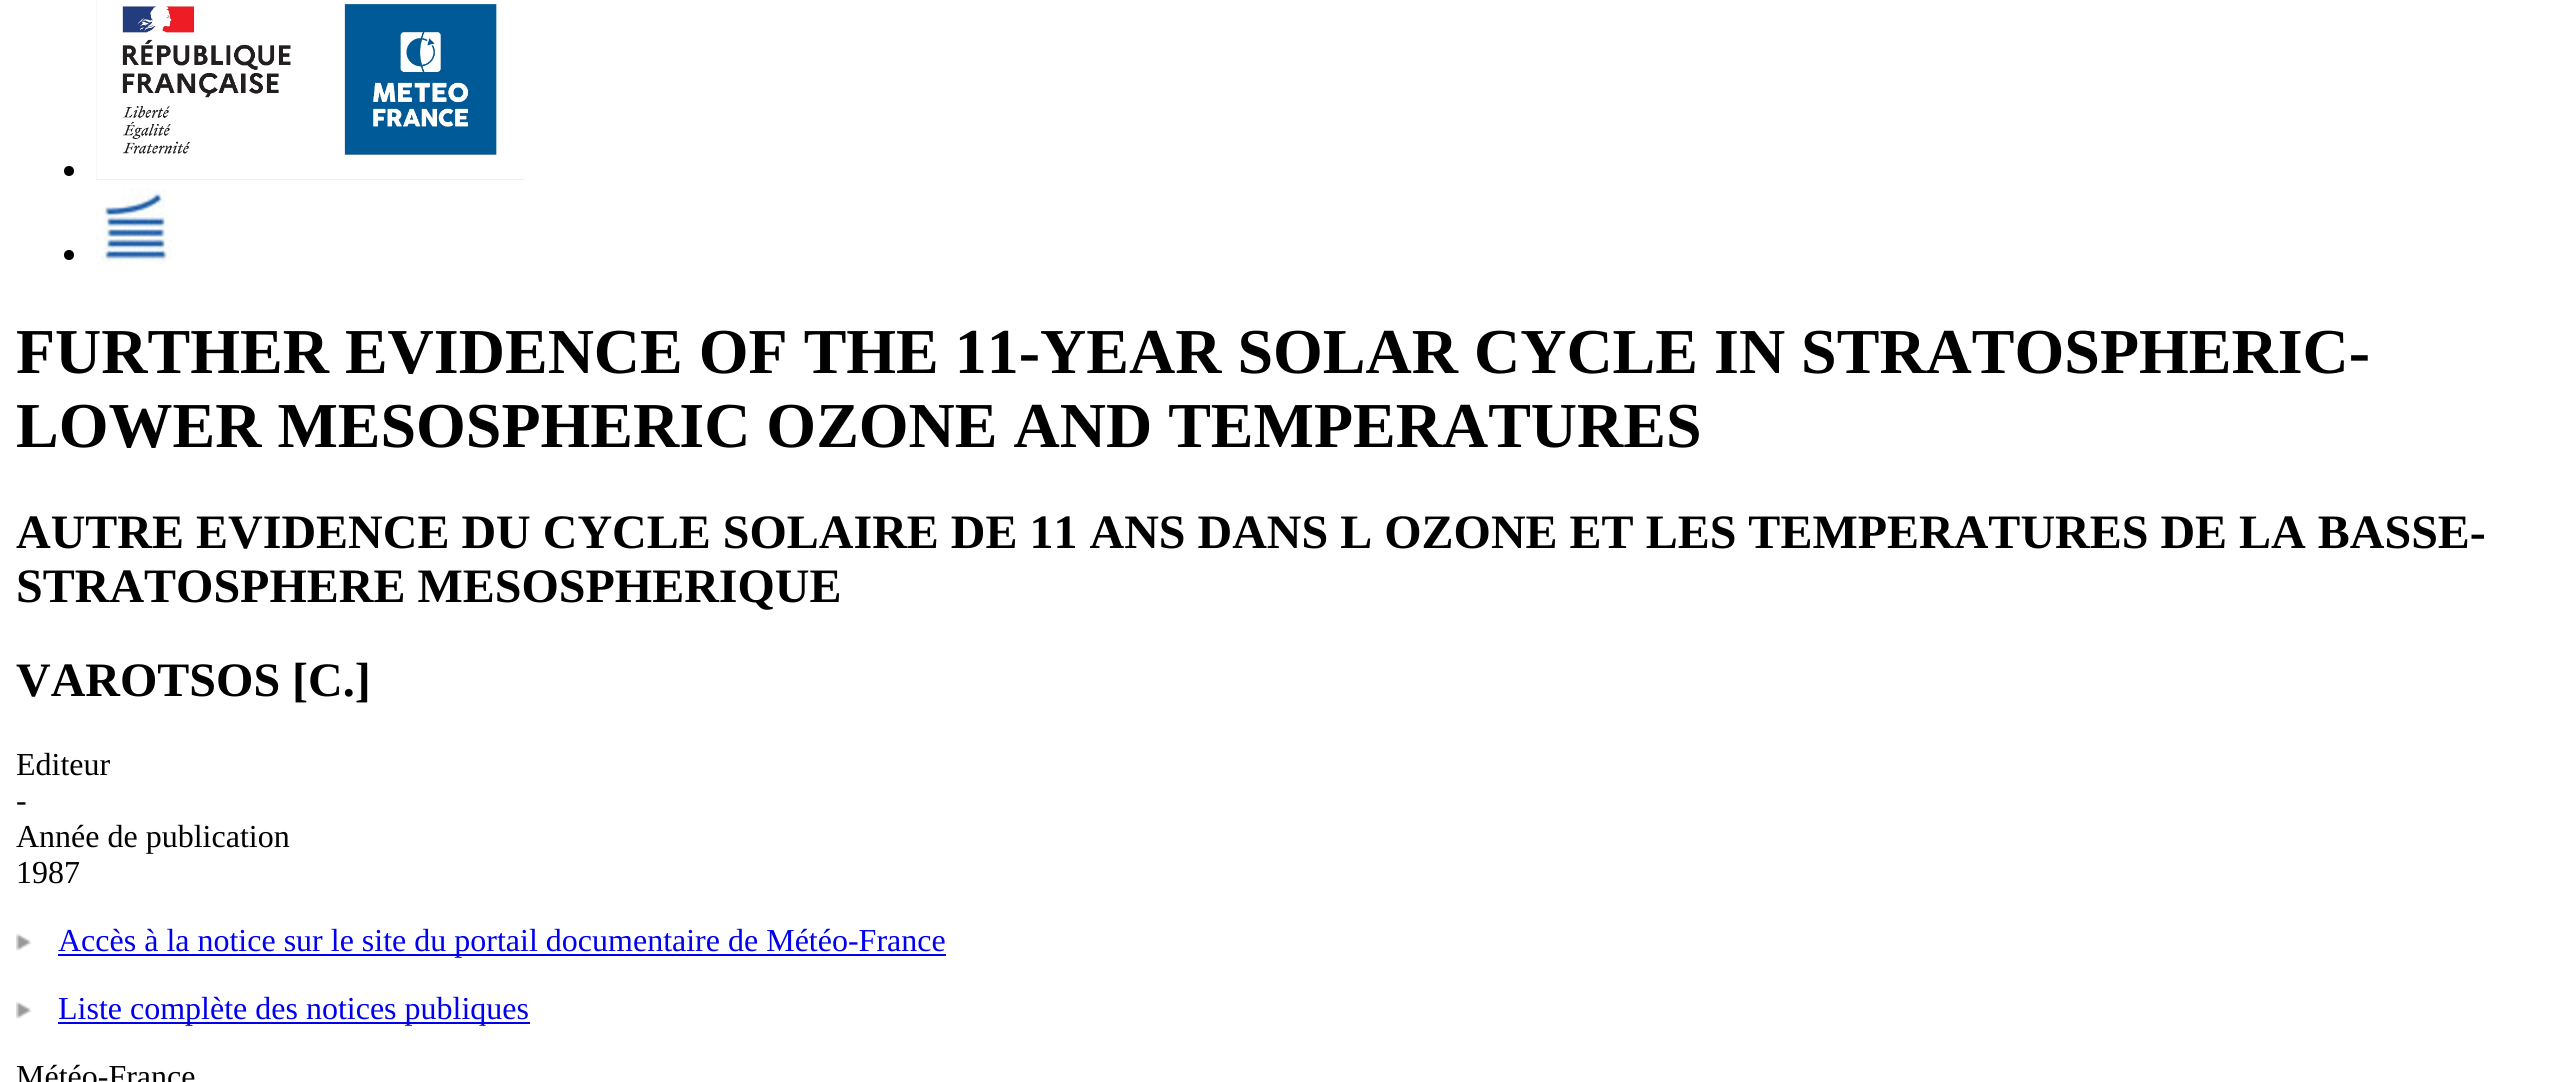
#include <cairo/cairo.h>
#include <math.h>
#include <stddef.h>

static cairo_t *cr;

static void use_color(int r, int g, int b) {
  cairo_set_source_rgb(cr, r / 255.0, g / 255.0, b / 255.0);
}

static void text(double x, double y, const char *s, const char *family, double size, int italic, int bold, int r, int g, int b) {
  cairo_select_font_face(cr, family, italic ? CAIRO_FONT_SLANT_ITALIC : CAIRO_FONT_SLANT_NORMAL,
    bold ? CAIRO_FONT_WEIGHT_BOLD : CAIRO_FONT_WEIGHT_NORMAL);
  cairo_set_font_size(cr, size);
  use_color(r, g, b);
  cairo_move_to(cr, x, y);
  cairo_show_text(cr, s);
}

static void box(double x, double y, double w, double h, int r, int g, int b) {
  use_color(r, g, b);
  cairo_rectangle(cr, x, y, w, h);
  cairo_fill(cr);
}

static void picture(const char *path, double x, double y, double w, double h) {
  cairo_surface_t *image = cairo_image_surface_create_from_png(path);
  cairo_save(cr);
  cairo_set_source_surface(cr, image, x, y);
  cairo_rectangle(cr, x, y, w, h);
  cairo_fill(cr);
  cairo_restore(cr);
  cairo_surface_destroy(image);
}

static void draw(void) {
  use_color(255, 255, 255);
  cairo_paint(cr);
  use_color(0, 0, 0);
  cairo_arc(cr, 69, 171, 5, 0, 2 * M_PI);
  cairo_fill(cr);
  picture("img_01.png", 96, 0, 428, 180);
  cairo_arc(cr, 69, 255, 5, 0, 2 * M_PI);
  cairo_fill(cr);
  picture("img_02.png", 96, 188, 76, 76);
  picture("img_03.png", 16, 934, 16, 17);
  box(58, 954, 888, 2, 0, 0, 238);
  picture("img_03.png", 16, 1002, 16, 17);
  box(58, 1022, 472, 2, 0, 0, 238);
  text(16, 373, "FURTHER EVIDENCE OF THE 11-YEAR SOLAR CYCLE IN STRATOSPHERIC-", "Liberation Serif", 64, 0, 1, 0, 0, 0);
  text(16, 447, "LOWER MESOSPHERIC OZONE AND TEMPERATURES", "Liberation Serif", 64, 0, 1, 0, 0, 0);
  text(16, 548, "AUTRE EVIDENCE DU CYCLE SOLAIRE DE 11 ANS DANS L OZONE ET LES TEMPERATURES DE LA BASSE-", "Liberation Serif", 48, 0, 1, 0, 0, 0);
  text(16, 602, "STRATOSPHERE MESOSPHERIQUE", "Liberation Serif", 48, 0, 1, 0, 0, 0);
  text(16, 696, "VAROTSOS [C.]", "Liberation Serif", 48, 0, 1, 0, 0, 0);
  text(16, 775, "Editeur", "Liberation Serif", 32, 0, 0, 0, 0, 0);
  text(16, 811, "-", "Liberation Serif", 32, 0, 0, 0, 0, 0);
  text(16, 847, "Année de publication", "Liberation Serif", 32, 0, 0, 0, 0, 0);
  text(16, 883, "1987", "Liberation Serif", 32, 0, 0, 0, 0, 0);
  text(58, 951, "Accès à la notice sur le site du portail documentaire de Météo-France", "Liberation Serif", 32, 0, 0, 0, 0, 238);
  text(58, 1019, "Liste complète des notices publiques", "Liberation Serif", 32, 0, 0, 0, 0, 238);
  text(16, 1087, "Météo-France", "Liberation Serif", 32, 0, 0, 0, 0, 0);
}

int main(void) {
  cairo_surface_t *surface = cairo_image_surface_create(CAIRO_FORMAT_RGB24, 2560, 1082);
  cr = cairo_create(surface);
  cairo_font_options_t *options = cairo_font_options_create();
  cairo_font_options_set_hint_metrics(options, CAIRO_HINT_METRICS_OFF);
  cairo_font_options_set_hint_style(options, CAIRO_HINT_STYLE_NONE);
  cairo_set_font_options(cr, options);
  cairo_set_miter_limit(cr, 4);
  draw();
  cairo_surface_write_to_png(surface, "out.png");
  cairo_font_options_destroy(options);
  cairo_destroy(cr);
  cairo_surface_destroy(surface);
  return 0;
}
